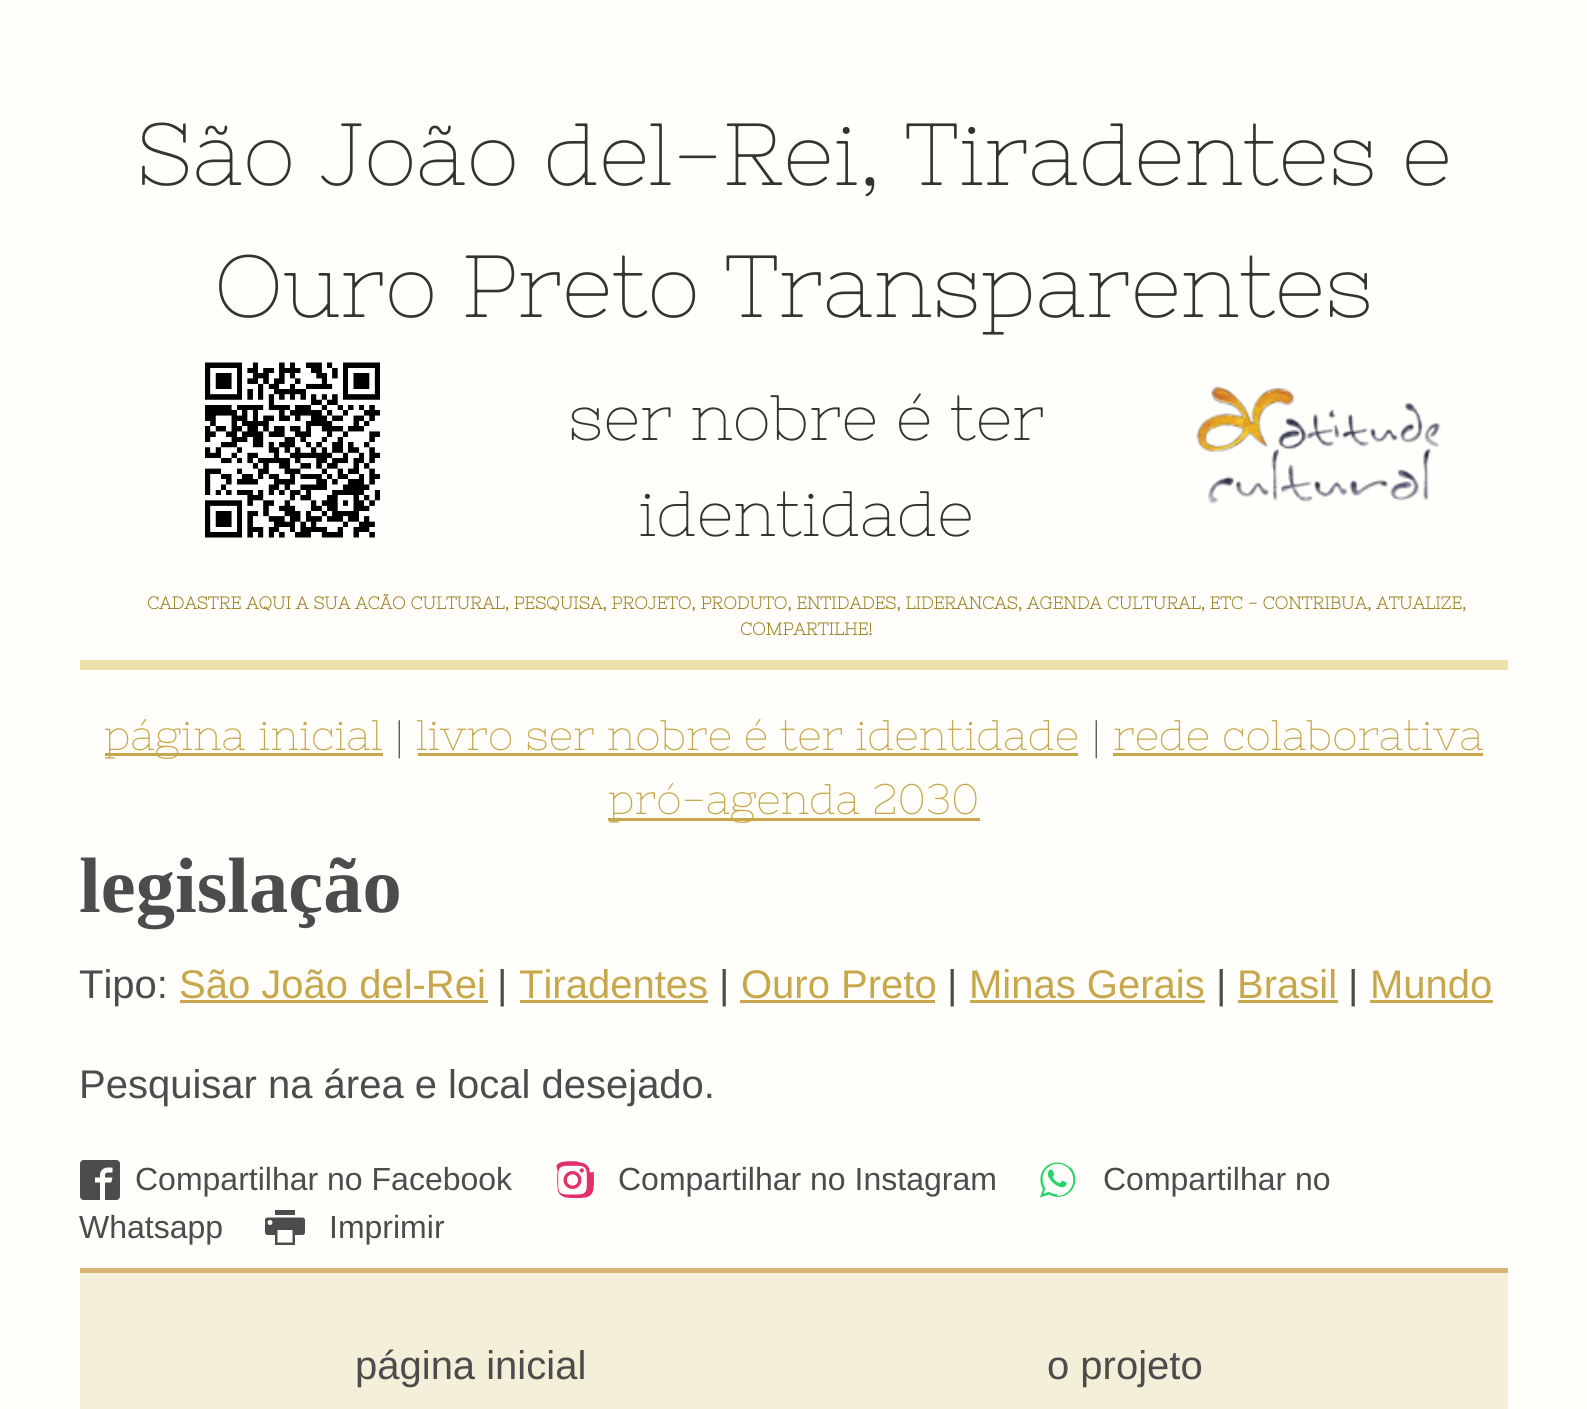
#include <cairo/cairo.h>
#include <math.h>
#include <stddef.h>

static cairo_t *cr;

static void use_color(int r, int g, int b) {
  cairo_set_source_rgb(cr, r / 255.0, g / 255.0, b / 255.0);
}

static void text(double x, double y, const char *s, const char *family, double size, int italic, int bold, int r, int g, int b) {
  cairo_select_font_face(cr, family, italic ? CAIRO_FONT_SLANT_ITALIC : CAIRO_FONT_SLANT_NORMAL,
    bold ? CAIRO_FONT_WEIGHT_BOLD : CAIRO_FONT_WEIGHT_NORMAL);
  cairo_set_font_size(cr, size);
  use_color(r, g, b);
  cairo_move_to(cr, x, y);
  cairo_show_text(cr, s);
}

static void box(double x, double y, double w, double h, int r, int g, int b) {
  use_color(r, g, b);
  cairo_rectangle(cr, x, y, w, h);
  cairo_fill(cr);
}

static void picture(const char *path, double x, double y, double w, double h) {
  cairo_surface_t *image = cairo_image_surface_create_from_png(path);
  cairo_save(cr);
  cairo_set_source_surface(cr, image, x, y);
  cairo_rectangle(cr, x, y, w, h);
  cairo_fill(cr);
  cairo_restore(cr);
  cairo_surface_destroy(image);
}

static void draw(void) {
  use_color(255, 254, 250);
  cairo_paint(cr);
  box(80, 660, 1428, 10, 238, 225, 169);
  picture("img_01.png", 205, 362, 175, 176);
  picture("img_02.png", 1196, 386, 245, 118);
  box(105, 753, 278, 3, 198, 167, 75);
  box(418, 753, 660, 3, 198, 167, 75);
  box(1113, 753, 370, 3, 198, 167, 75);
  box(608, 818, 372, 3, 198, 167, 75);
  box(180, 1000, 308, 3, 198, 167, 75);
  box(520, 1000, 188, 3, 198, 167, 75);
  box(740, 1000, 195, 3, 198, 167, 75);
  box(970, 1000, 235, 3, 198, 167, 75);
  box(1238, 1000, 100, 3, 198, 167, 75);
  box(1370, 1000, 123, 3, 198, 167, 75);
  picture("img_03.png", 80, 1160, 40, 40);
  picture("img_04.png", 556, 1161, 38, 37);
  picture("img_05.png", 1040, 1162, 36, 36);
  picture("img_06.png", 265, 1210, 40, 35);
  box(80, 1273, 1428, 136, 244, 239, 217);
  box(80, 1268, 1428, 5, 217, 182, 114);
  text(136, 185, "São João del-Rei, Tiradentes e", "Nixie One", 88, 0, 0, 51, 51, 50);
  text(214, 317, "Ouro Preto Transparentes", "Nixie One", 88, 0, 0, 51, 51, 50);
  text(568, 440, "ser nobre é ter", "Nixie One", 64, 0, 0, 51, 51, 50);
  text(638, 536, "identidade", "Nixie One", 64, 0, 0, 51, 51, 50);
  text(147, 609, "CADASTRE AQUI A SUA AÇÃO CULTURAL, PESQUISA, PROJETO, PRODUTO, ENTIDADES, LIDERANÇAS, AGENDA CULTURAL, ETC - CONTRIBUA, ATUALIZE,", "Nixie One", 17.28, 0, 1, 158, 133, 40);
  text(740, 635, "COMPARTILHE!", "Nixie One", 17.28, 0, 1, 158, 133, 40);
  text(104, 750, "página inicial", "Nixie One", 42.7, 0, 0, 198, 167, 75);
  text(394, 750, "|", "Nixie One", 42.7, 0, 0, 76, 76, 76);
  text(416, 750, "livro ser nobre é ter identidade", "Nixie One", 42.7, 0, 0, 198, 167, 75);
  text(1091, 750, "|", "Nixie One", 42.7, 0, 0, 76, 76, 76);
  text(1113, 750, "rede colaborativa", "Nixie One", 42.7, 0, 0, 198, 167, 75);
  text(608, 814, "pró-agenda 2030", "Nixie One", 42.7, 0, 0, 198, 167, 75);
  text(79, 912, "legislação", "Liberation Serif", 78.5, 0, 1, 76, 76, 76);
  text(79, 998, "Tipo:", "Liberation Sans", 40, 0, 0, 76, 76, 76);
  text(179, 998, "São João del-Rei", "Liberation Sans", 40, 0, 0, 198, 167, 75);
  text(497, 998, "|", "Liberation Sans", 40, 0, 0, 76, 76, 76);
  text(519, 998, "Tiradentes", "Liberation Sans", 40, 0, 0, 198, 167, 75);
  text(719, 998, "|", "Liberation Sans", 40, 0, 0, 76, 76, 76);
  text(741, 998, "Ouro Preto", "Liberation Sans", 40, 0, 0, 198, 167, 75);
  text(947, 998, "|", "Liberation Sans", 40, 0, 0, 76, 76, 76);
  text(969, 998, "Minas Gerais", "Liberation Sans", 40, 0, 0, 198, 167, 75);
  text(1216, 998, "|", "Liberation Sans", 40, 0, 0, 76, 76, 76);
  text(1237, 998, "Brasil", "Liberation Sans", 40, 0, 0, 198, 167, 75);
  text(1348, 998, "|", "Liberation Sans", 40, 0, 0, 76, 76, 76);
  text(1370, 998, "Mundo", "Liberation Sans", 40, 0, 0, 198, 167, 75);
  text(79, 1098, "Pesquisar na área e local desejado.", "Liberation Sans", 40, 0, 0, 76, 76, 76);
  text(135, 1190, "Compartilhar no Facebook", "Liberation Sans", 32, 0, 0, 76, 76, 76);
  text(618, 1190, "Compartilhar no Instagram", "Liberation Sans", 32, 0, 0, 76, 76, 76);
  text(1103, 1190, "Compartilhar no", "Liberation Sans", 32, 0, 0, 76, 76, 76);
  text(79, 1238, "Whatsapp", "Liberation Sans", 32, 0, 0, 76, 76, 76);
  text(329, 1238, "Imprimir", "Liberation Sans", 32, 0, 0, 76, 76, 76);
  text(355, 1379, "página inicial", "Liberation Sans", 40, 0, 0, 76, 76, 76);
  text(1047, 1379, "o projeto", "Liberation Sans", 40, 0, 0, 76, 76, 76);
}

int main(void) {
  cairo_surface_t *surface = cairo_image_surface_create(CAIRO_FORMAT_RGB24, 1587, 1409);
  cr = cairo_create(surface);
  cairo_font_options_t *options = cairo_font_options_create();
  cairo_font_options_set_hint_metrics(options, CAIRO_HINT_METRICS_OFF);
  cairo_font_options_set_hint_style(options, CAIRO_HINT_STYLE_NONE);
  cairo_set_font_options(cr, options);
  cairo_set_miter_limit(cr, 4);
  draw();
  cairo_surface_write_to_png(surface, "out.png");
  cairo_font_options_destroy(options);
  cairo_destroy(cr);
  cairo_surface_destroy(surface);
  return 0;
}
